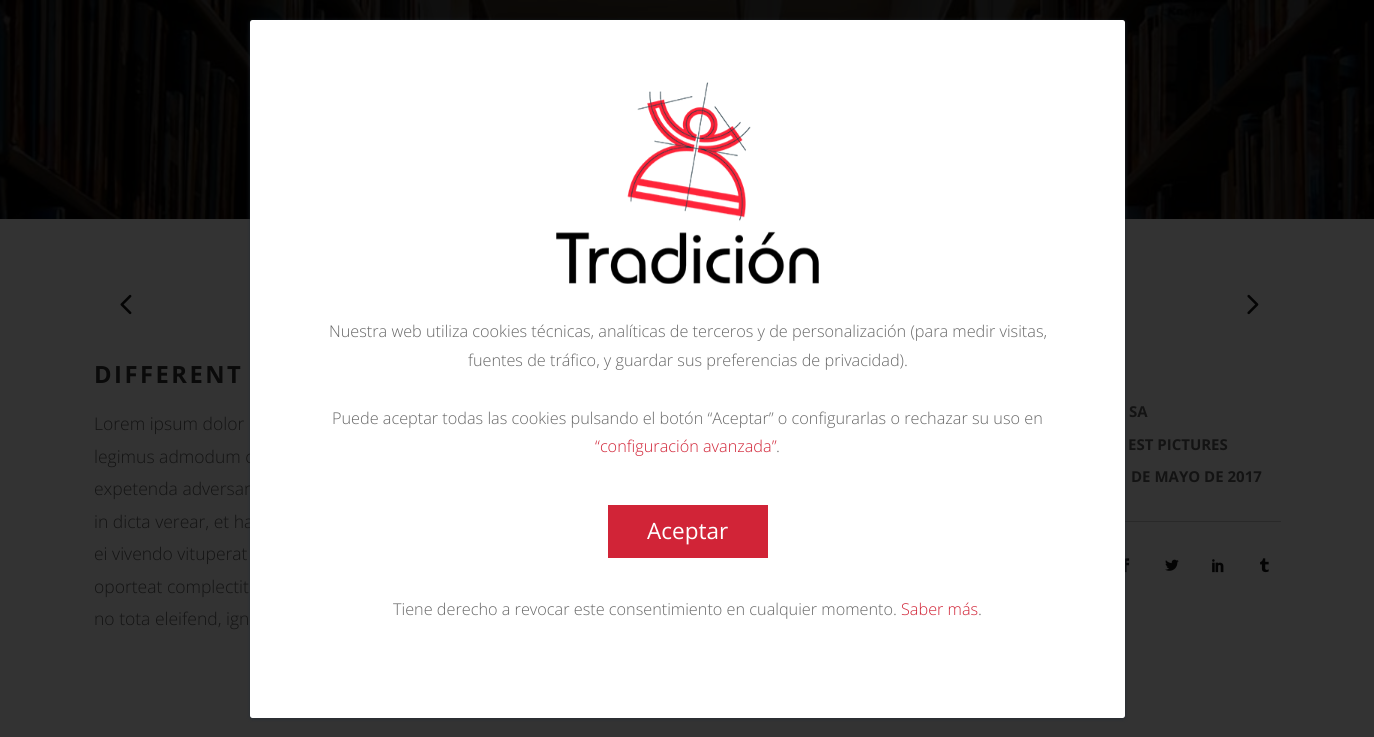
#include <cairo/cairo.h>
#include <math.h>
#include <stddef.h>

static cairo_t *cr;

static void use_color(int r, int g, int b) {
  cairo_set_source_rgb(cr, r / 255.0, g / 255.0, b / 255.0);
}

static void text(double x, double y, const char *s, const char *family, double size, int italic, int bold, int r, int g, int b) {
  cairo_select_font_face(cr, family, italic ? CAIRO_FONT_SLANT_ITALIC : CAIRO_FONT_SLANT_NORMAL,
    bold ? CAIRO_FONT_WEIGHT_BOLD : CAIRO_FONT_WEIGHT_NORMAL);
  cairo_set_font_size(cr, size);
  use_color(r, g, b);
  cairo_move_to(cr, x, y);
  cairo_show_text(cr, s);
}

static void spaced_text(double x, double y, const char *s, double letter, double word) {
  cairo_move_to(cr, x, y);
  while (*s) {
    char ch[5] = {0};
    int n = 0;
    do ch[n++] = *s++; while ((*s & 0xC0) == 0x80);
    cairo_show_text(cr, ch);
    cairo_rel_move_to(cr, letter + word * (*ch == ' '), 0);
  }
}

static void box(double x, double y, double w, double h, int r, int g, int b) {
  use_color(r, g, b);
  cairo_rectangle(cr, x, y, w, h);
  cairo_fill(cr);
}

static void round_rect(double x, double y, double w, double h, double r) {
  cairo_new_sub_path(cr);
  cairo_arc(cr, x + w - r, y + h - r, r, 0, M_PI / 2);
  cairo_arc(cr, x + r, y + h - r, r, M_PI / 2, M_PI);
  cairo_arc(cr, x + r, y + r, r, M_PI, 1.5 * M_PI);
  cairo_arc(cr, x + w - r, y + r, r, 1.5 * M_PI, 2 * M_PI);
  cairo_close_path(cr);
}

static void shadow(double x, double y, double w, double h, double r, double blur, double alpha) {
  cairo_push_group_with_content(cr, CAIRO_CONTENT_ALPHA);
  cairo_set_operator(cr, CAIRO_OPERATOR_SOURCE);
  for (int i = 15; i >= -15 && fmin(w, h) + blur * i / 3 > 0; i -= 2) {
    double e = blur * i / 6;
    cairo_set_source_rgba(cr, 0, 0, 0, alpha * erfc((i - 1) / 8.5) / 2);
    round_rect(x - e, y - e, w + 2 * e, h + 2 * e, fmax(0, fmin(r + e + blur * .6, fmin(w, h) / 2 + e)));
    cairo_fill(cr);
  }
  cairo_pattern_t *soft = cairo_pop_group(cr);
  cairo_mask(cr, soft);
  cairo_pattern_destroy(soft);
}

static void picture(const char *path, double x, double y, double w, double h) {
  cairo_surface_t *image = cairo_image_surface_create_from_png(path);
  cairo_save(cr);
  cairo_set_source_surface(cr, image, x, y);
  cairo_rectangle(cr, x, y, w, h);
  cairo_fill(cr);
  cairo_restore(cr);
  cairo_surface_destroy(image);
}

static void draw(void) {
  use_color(51, 51, 51);
  cairo_paint(cr);
  picture("img_02.png", 0, 0, 1374, 219);
  box(1125, 521, 156, 1, 41, 41, 41);
  picture("img_05.png", 1125, 558, 5, 15);
  use_color(33, 41, 52);
  shadow(250, 21, 875, 698, 2.5, 2, 0.75);
  picture("img_03.png", 120, 294, 12, 21);
  picture("img_04.png", 1247, 294, 12, 21);
  picture("img_06.png", 1165, 559, 14, 12);
  picture("img_07.png", 1212, 559, 12, 14);
  picture("img_08.png", 1260, 558, 9, 15);
  cairo_select_font_face(cr, "Open Sans", CAIRO_FONT_SLANT_NORMAL, CAIRO_FONT_WEIGHT_BOLD);
  cairo_set_font_size(cr, 23.75);
  use_color(10, 10, 10);
  spaced_text(94, 383, "DIFFERENT", 2.5, 0);
  text(94, 430, "Lorem ipsum dolor", "Open Sans Light", 17.5, 0, 0, 19, 19, 19);
  text(94, 463, "legimus admodum c", "Open Sans Light", 17.5, 0, 0, 19, 19, 19);
  text(94, 495, "expetenda adversar", "Open Sans Light", 17.5, 0, 0, 19, 19, 19);
  text(94, 528, "in dicta verear, et ha", "Open Sans Light", 17.5, 0, 0, 19, 19, 19);
  use_color(255, 255, 255);
  round_rect(250, 20, 875, 698, 2.5);
  cairo_fill(cr);
  text(978, 615, ".", "Open Sans Light", 16.25, 0, 0, 103, 103, 103);
  text(901, 615, "Saber más", "Open Sans Light", 16.25, 0, 0, 209, 36, 55);
  text(393, 615, "Tiene derecho a revocar este consentimiento en cualquier momento.", "Open Sans Light", 16.25, 0, 0, 103, 103, 103);
  box(608, 505, 160, 53, 209, 36, 55);
  text(647, 539, "Aceptar", "Open Sans", 22.5, 0, 0, 255, 255, 255);
  text(776, 452, ".", "Open Sans Light", 16.25, 0, 0, 103, 103, 103);
  text(595, 452, "“configuración avanzada”", "Open Sans Light", 16.25, 0, 0, 209, 36, 55);
  text(332, 424, "Puede aceptar todas las cookies pulsando el botón “Aceptar” o configurarlas o rechazar su uso en", "Open Sans Light", 16.25, 0, 0, 103, 103, 103);
  text(468, 366, "fuentes de tráfico, y guardar sus preferencias de privacidad).", "Open Sans Light", 16.25, 0, 0, 103, 103, 103);
  text(329, 337, "Nuestra web utiliza cookies técnicas, analíticas de terceros y de personalización (para medir visitas,", "Open Sans Light", 16.25, 0, 0, 103, 103, 103);
  picture("img_01.png", 556, 82, 263, 202);
  text(94, 560, "ei vivendo vituperat", "Open Sans Light", 17.5, 0, 0, 19, 19, 19);
  text(94, 593, "oporteat complectit", "Open Sans Light", 17.5, 0, 0, 19, 19, 19);
  text(94, 625, "no tota eleifend, ign", "Open Sans Light", 17.5, 0, 0, 19, 19, 19);
  text(1129, 417, "SA", "Open Sans", 15, 0, 1, 19, 19, 19);
  text(1128, 450, "EST PICTURES", "Open Sans", 15, 0, 1, 19, 19, 19);
  text(1131, 482, "DE MAYO DE 2017", "Open Sans", 15, 0, 1, 19, 19, 19);
}

int main(void) {
  cairo_surface_t *surface = cairo_image_surface_create(CAIRO_FORMAT_RGB24, 1374, 737);
  cr = cairo_create(surface);
  cairo_font_options_t *options = cairo_font_options_create();
  cairo_font_options_set_hint_metrics(options, CAIRO_HINT_METRICS_OFF);
  cairo_font_options_set_hint_style(options, CAIRO_HINT_STYLE_NONE);
  cairo_set_font_options(cr, options);
  cairo_set_miter_limit(cr, 4);
  draw();
  cairo_surface_write_to_png(surface, "out.png");
  cairo_font_options_destroy(options);
  cairo_destroy(cr);
  cairo_surface_destroy(surface);
  return 0;
}
